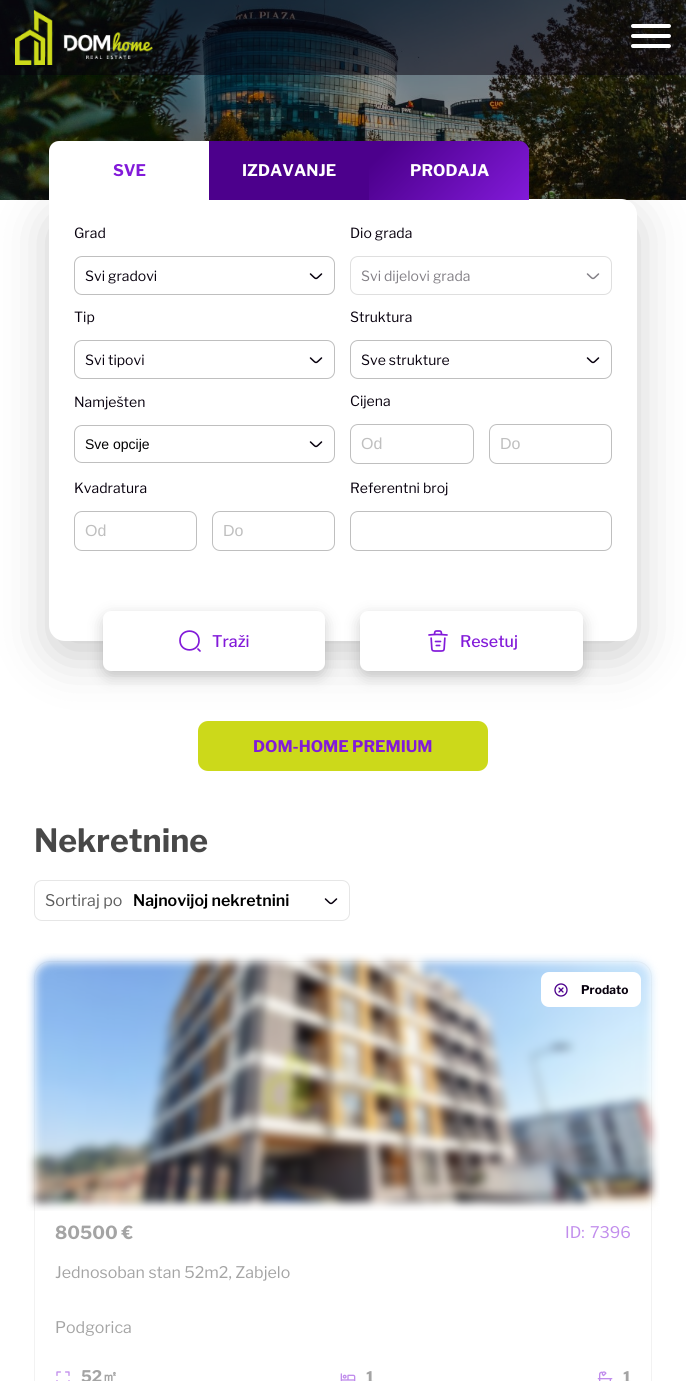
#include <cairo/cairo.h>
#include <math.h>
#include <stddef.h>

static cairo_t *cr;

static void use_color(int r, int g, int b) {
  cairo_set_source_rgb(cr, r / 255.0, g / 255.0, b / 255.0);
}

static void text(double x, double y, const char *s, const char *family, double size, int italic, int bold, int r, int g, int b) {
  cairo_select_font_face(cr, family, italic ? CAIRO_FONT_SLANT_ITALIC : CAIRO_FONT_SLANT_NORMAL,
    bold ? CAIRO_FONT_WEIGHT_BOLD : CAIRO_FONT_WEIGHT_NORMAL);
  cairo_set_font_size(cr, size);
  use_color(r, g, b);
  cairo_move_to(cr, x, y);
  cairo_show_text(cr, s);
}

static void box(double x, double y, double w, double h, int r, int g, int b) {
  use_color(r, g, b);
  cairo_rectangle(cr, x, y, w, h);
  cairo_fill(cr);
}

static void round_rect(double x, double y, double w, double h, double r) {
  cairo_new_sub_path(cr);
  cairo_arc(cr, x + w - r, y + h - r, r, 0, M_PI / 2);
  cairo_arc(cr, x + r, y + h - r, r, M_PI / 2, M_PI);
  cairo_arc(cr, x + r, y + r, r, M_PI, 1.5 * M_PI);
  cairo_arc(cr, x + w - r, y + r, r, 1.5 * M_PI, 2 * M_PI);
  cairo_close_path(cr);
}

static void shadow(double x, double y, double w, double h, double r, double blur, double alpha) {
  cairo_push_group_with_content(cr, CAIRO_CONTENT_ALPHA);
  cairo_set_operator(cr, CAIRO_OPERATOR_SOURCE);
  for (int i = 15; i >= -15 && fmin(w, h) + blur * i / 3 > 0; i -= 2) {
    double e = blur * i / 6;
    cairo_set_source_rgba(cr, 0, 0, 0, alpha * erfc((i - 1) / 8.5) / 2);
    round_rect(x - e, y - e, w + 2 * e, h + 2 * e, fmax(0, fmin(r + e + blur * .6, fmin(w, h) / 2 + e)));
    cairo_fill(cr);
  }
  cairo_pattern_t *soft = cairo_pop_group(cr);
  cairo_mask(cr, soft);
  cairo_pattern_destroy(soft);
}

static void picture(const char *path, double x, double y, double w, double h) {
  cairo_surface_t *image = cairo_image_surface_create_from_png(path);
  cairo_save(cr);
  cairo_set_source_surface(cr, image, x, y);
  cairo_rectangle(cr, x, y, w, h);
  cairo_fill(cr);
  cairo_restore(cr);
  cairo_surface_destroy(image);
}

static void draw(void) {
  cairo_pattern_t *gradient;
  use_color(255, 255, 255);
  cairo_paint(cr);
  picture("img_02.png", 0, 0, 686, 200);
  cairo_set_source_rgba(cr, 0.027, 0, 0.051, 0.5);
  cairo_rectangle(cr, 0, 0, 686, 75);
  cairo_fill(cr);
  picture("img_01.png", 15, 10, 138, 55);
  use_color(255, 255, 255);
  round_rect(631, 24, 40, 4, 2);
  cairo_fill(cr);
  round_rect(631, 34, 40, 4, 2);
  cairo_fill(cr);
  round_rect(631, 44, 40, 4, 2);
  cairo_fill(cr);
  use_color(0, 0, 0);
  shadow(49, 214, 588, 442, 16, 25, 0.2);
  use_color(255, 255, 255);
  cairo_new_path(cr);
  cairo_move_to(cr, 49, 199);
  cairo_line_to(cr, 621, 199);
  cairo_curve_to(cr, 630, 199, 637, 206, 637, 215);
  cairo_line_to(cr, 637, 625);
  cairo_curve_to(cr, 637, 634, 630, 641, 621, 641);
  cairo_line_to(cr, 65, 641);
  cairo_curve_to(cr, 56, 641, 49, 634, 49, 625);
  cairo_close_path(cr);
  cairo_fill(cr);
  cairo_new_path(cr);
  cairo_move_to(cr, 59, 141);
  cairo_line_to(cr, 209, 141);
  cairo_line_to(cr, 209, 200);
  cairo_line_to(cr, 49, 200);
  cairo_line_to(cr, 49, 151);
  cairo_curve_to(cr, 49, 145.5, 53.5, 141, 59, 141);
  cairo_close_path(cr);
  cairo_fill(cr);
  box(209, 141, 160, 59, 76, 0, 140);
  gradient = cairo_pattern_create_linear(504, 225, 394, 116);
  cairo_pattern_add_color_stop_rgba(gradient, 0, 0.51, 0.102, 0.851, 1);
  cairo_pattern_add_color_stop_rgba(gradient, 0.89, 0.298, 0, 0.549, 1);
  cairo_set_source(cr, gradient);
  cairo_pattern_destroy(gradient);
  cairo_new_path(cr);
  cairo_move_to(cr, 369, 141);
  cairo_line_to(cr, 519, 141);
  cairo_curve_to(cr, 524.5, 141, 529, 145.5, 529, 151);
  cairo_line_to(cr, 529, 200);
  cairo_line_to(cr, 369, 200);
  cairo_close_path(cr);
  cairo_fill(cr);
  cairo_new_path(cr);
  cairo_move_to(cr, 321.5, 274);
  cairo_curve_to(cr, 315, 280, 317, 280, 310.5, 274);
  use_color(7, 0, 13);
  cairo_set_line_width(cr, 1.5);
  cairo_set_line_cap(cr, CAIRO_LINE_CAP_ROUND);
  cairo_set_line_join(cr, CAIRO_LINE_JOIN_ROUND);
  cairo_stroke(cr);
  round_rect(74.5, 256.5, 260, 38, 7.5);
  use_color(191, 191, 191);
  cairo_set_line_width(cr, 1);
  cairo_set_line_cap(cr, CAIRO_LINE_CAP_BUTT);
  cairo_set_line_join(cr, CAIRO_LINE_JOIN_MITER);
  cairo_stroke(cr);
  cairo_new_path(cr);
  cairo_move_to(cr, 598.5, 274);
  cairo_curve_to(cr, 592, 280, 594, 280, 587.5, 274);
  use_color(131, 128, 134);
  cairo_set_line_width(cr, 1.5);
  cairo_set_line_cap(cr, CAIRO_LINE_CAP_ROUND);
  cairo_set_line_join(cr, CAIRO_LINE_JOIN_ROUND);
  cairo_stroke(cr);
  round_rect(350.5, 256.5, 261, 38, 7.5);
  use_color(223, 223, 223);
  cairo_set_line_width(cr, 1);
  cairo_set_line_cap(cr, CAIRO_LINE_CAP_BUTT);
  cairo_set_line_join(cr, CAIRO_LINE_JOIN_MITER);
  cairo_stroke(cr);
  cairo_new_path(cr);
  cairo_move_to(cr, 321.5, 358);
  cairo_curve_to(cr, 315, 364, 317, 364, 310.5, 358);
  use_color(7, 0, 13);
  cairo_set_line_width(cr, 1.5);
  cairo_set_line_cap(cr, CAIRO_LINE_CAP_ROUND);
  cairo_set_line_join(cr, CAIRO_LINE_JOIN_ROUND);
  cairo_stroke(cr);
  round_rect(74.5, 340.5, 260, 38, 7.5);
  use_color(191, 191, 191);
  cairo_set_line_width(cr, 1);
  cairo_set_line_cap(cr, CAIRO_LINE_CAP_BUTT);
  cairo_set_line_join(cr, CAIRO_LINE_JOIN_MITER);
  cairo_stroke(cr);
  cairo_new_path(cr);
  cairo_move_to(cr, 598.5, 358);
  cairo_curve_to(cr, 592, 364, 594, 364, 587.5, 358);
  use_color(7, 0, 13);
  cairo_set_line_width(cr, 1.5);
  cairo_set_line_cap(cr, CAIRO_LINE_CAP_ROUND);
  cairo_set_line_join(cr, CAIRO_LINE_JOIN_ROUND);
  cairo_stroke(cr);
  round_rect(350.5, 340.5, 261, 38, 7.5);
  use_color(191, 191, 191);
  cairo_set_line_width(cr, 1);
  cairo_set_line_cap(cr, CAIRO_LINE_CAP_BUTT);
  cairo_set_line_join(cr, CAIRO_LINE_JOIN_MITER);
  cairo_stroke(cr);
  cairo_new_path(cr);
  cairo_move_to(cr, 321.5, 442);
  cairo_curve_to(cr, 315, 448, 317, 448, 310.5, 442);
  use_color(7, 0, 13);
  cairo_set_line_width(cr, 1.5);
  cairo_set_line_cap(cr, CAIRO_LINE_CAP_ROUND);
  cairo_set_line_join(cr, CAIRO_LINE_JOIN_ROUND);
  cairo_stroke(cr);
  round_rect(74.5, 425.5, 260, 37, 7.5);
  use_color(191, 191, 191);
  cairo_set_line_width(cr, 1);
  cairo_set_line_cap(cr, CAIRO_LINE_CAP_BUTT);
  cairo_set_line_join(cr, CAIRO_LINE_JOIN_MITER);
  cairo_stroke(cr);
  round_rect(350.5, 424.5, 123, 39, 7.5);
  cairo_stroke(cr);
  round_rect(489.5, 424.5, 122, 39, 7.5);
  cairo_stroke(cr);
  round_rect(74.5, 511.5, 122, 39, 7.5);
  cairo_stroke(cr);
  round_rect(212.5, 511.5, 122, 39, 7.5);
  cairo_stroke(cr);
  round_rect(350.5, 511.5, 261, 39, 7.5);
  cairo_stroke(cr);
  use_color(0, 0, 0);
  shadow(103, 616, 222, 60, 8, 7.5, 0.2);
  use_color(255, 255, 255);
  round_rect(103, 611, 222, 60, 8);
  cairo_fill(cr);
  cairo_new_path(cr);
  cairo_move_to(cr, 199, 640.5);
  cairo_curve_to(cr, 199, 653, 180, 653, 180, 640.5);
  cairo_curve_to(cr, 180, 628, 199, 628, 199, 640.5);
  cairo_close_path(cr);
  cairo_move_to(cr, 200, 651);
  cairo_line_to(cr, 198, 649);
  use_color(130, 26, 217);
  cairo_set_line_width(cr, 1.7);
  cairo_set_line_cap(cr, CAIRO_LINE_CAP_ROUND);
  cairo_set_line_join(cr, CAIRO_LINE_JOIN_ROUND);
  cairo_stroke(cr);
  use_color(0, 0, 0);
  shadow(360, 616, 223, 60, 8, 7.5, 0.2);
  use_color(255, 255, 255);
  round_rect(360, 611, 223, 60, 8);
  cairo_fill(cr);
  picture("img_03.png", 428, 630, 20, 22);
  use_color(204, 217, 26);
  round_rect(198, 721, 290, 50, 10);
  cairo_fill(cr);
  round_rect(34.5, 880.5, 315, 40, 7.5);
  use_color(230, 230, 230);
  cairo_set_line_width(cr, 1);
  cairo_set_line_cap(cr, CAIRO_LINE_CAP_BUTT);
  cairo_set_line_join(cr, CAIRO_LINE_JOIN_MITER);
  cairo_stroke(cr);
  cairo_new_path(cr);
  cairo_move_to(cr, 336.5, 899);
  cairo_curve_to(cr, 330, 905, 332, 905, 325.5, 899);
  use_color(7, 0, 13);
  cairo_set_line_width(cr, 1.5);
  cairo_set_line_cap(cr, CAIRO_LINE_CAP_ROUND);
  cairo_set_line_join(cr, CAIRO_LINE_JOIN_ROUND);
  cairo_stroke(cr);
  round_rect(34.5, 961.5, 617, 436, 15.5);
  use_color(242, 242, 242);
  cairo_set_line_width(cr, 1);
  cairo_set_line_cap(cr, CAIRO_LINE_CAP_BUTT);
  cairo_set_line_join(cr, CAIRO_LINE_JOIN_MITER);
  cairo_stroke(cr);
  picture("img_04.png", 26, 953, 634, 258);
  use_color(255, 255, 255);
  round_rect(541, 972, 100, 35, 8);
  cairo_fill(cr);
  picture("img_05.png", 554, 983, 14, 14);
  picture("img_06.png", 56, 1371, 14, 10);
  picture("img_07.png", 340, 1373, 16, 8);
  picture("img_08.png", 597, 1371, 16, 10);
  text(113, 176, "SVE", "Libre Franklin", 16, 0, 1, 130, 26, 217);
  text(242, 176, "IZDAVANJE", "Libre Franklin", 16, 0, 1, 255, 255, 255);
  text(410, 176, "PRODAJA", "Libre Franklin", 16, 0, 1, 255, 255, 255);
  text(74, 238, "Grad", "Libre Franklin", 14, 0, 0, 7, 0, 13);
  text(85, 281, "Svi gradovi", "Libre Franklin", 14, 0, 0, 7, 0, 13);
  text(350, 238, "Dio grada", "Libre Franklin", 14, 0, 0, 7, 0, 13);
  text(361, 281, "Svi dijelovi grada", "Libre Franklin", 14, 0, 0, 131, 128, 134);
  text(74, 322, "Tip", "Libre Franklin", 14, 0, 0, 7, 0, 13);
  text(85, 365, "Svi tipovi", "Libre Franklin", 14, 0, 0, 7, 0, 13);
  text(350, 322, "Struktura", "Libre Franklin", 14, 0, 0, 7, 0, 13);
  text(361, 365, "Sve strukture", "Libre Franklin", 14, 0, 0, 7, 0, 13);
  text(74, 407, "Namješten", "Libre Franklin", 14, 0, 0, 7, 0, 13);
  text(85, 449, "Sve opcije", "Liberation Sans", 14, 0, 0, 0, 0, 0);
  text(350, 406, "Cijena", "Libre Franklin", 14, 0, 0, 7, 0, 13);
  text(361, 449, "Od", "Liberation Sans", 16, 0, 0, 191, 191, 191);
  text(500, 449, "Do", "Liberation Sans", 16, 0, 0, 191, 191, 191);
  text(74, 493, "Kvadratura", "Libre Franklin", 14, 0, 0, 7, 0, 13);
  text(85, 536, "Od", "Liberation Sans", 16, 0, 0, 191, 191, 191);
  text(223, 536, "Do", "Liberation Sans", 16, 0, 0, 191, 191, 191);
  text(350, 493, "Referentni broj", "Libre Franklin", 14, 0, 0, 7, 0, 13);
  text(212, 647, "Traži", "Libre Franklin Medium", 16, 0, 0, 130, 26, 217);
  text(460, 647, "Resetuj", "Libre Franklin Medium", 16, 0, 0, 130, 26, 217);
  text(253, 752, "DOM-HOME PREMIUM", "Libre Franklin", 16, 0, 1, 130, 26, 217);
  text(34, 852, "Nekretnine", "Libre Franklin", 32, 0, 1, 72, 72, 72);
  text(45, 906, "Sortiraj po", "Libre Franklin", 16, 0, 0, 93, 93, 93);
  text(133, 906, "Najnovijoj nekretnini", "Libre Franklin SemiBold", 16, 0, 0, 0, 0, 0);
  text(581, 994, "Prodato", "Libre Franklin", 12, 0, 1, 7, 0, 13);
  text(55, 1239, "80500 €", "Libre Franklin", 18, 0, 1, 164, 164, 164);
  text(565, 1238, "ID:", "Libre Franklin", 16, 0, 0, 193, 141, 236);
  text(590, 1238, "7396", "Libre Franklin", 16, 0, 0, 193, 141, 236);
  text(55, 1278, "Jednosoban stan 52m2, Zabjelo", "Libre Franklin", 16, 0, 0, 164, 164, 164);
  text(55, 1333, "Podgorica", "Libre Franklin", 16, 0, 0, 164, 164, 164);
  text(81, 1382, "52", "Libre Franklin", 16, 0, 1, 164, 164, 164);
  text(102, 1382, "㎡", "WenQuanYi Zen Hei", 16, 0, 1, 164, 164, 164);
  text(366, 1383, "1", "Libre Franklin", 16, 0, 1, 164, 164, 164);
  text(623, 1383, "1", "Libre Franklin", 16, 0, 1, 164, 164, 164);
}

int main(void) {
  cairo_surface_t *surface = cairo_image_surface_create(CAIRO_FORMAT_RGB24, 686, 1381);
  cr = cairo_create(surface);
  cairo_font_options_t *options = cairo_font_options_create();
  cairo_font_options_set_hint_metrics(options, CAIRO_HINT_METRICS_OFF);
  cairo_font_options_set_hint_style(options, CAIRO_HINT_STYLE_NONE);
  cairo_set_font_options(cr, options);
  cairo_set_miter_limit(cr, 4);
  draw();
  cairo_surface_write_to_png(surface, "out.png");
  cairo_font_options_destroy(options);
  cairo_destroy(cr);
  cairo_surface_destroy(surface);
  return 0;
}
